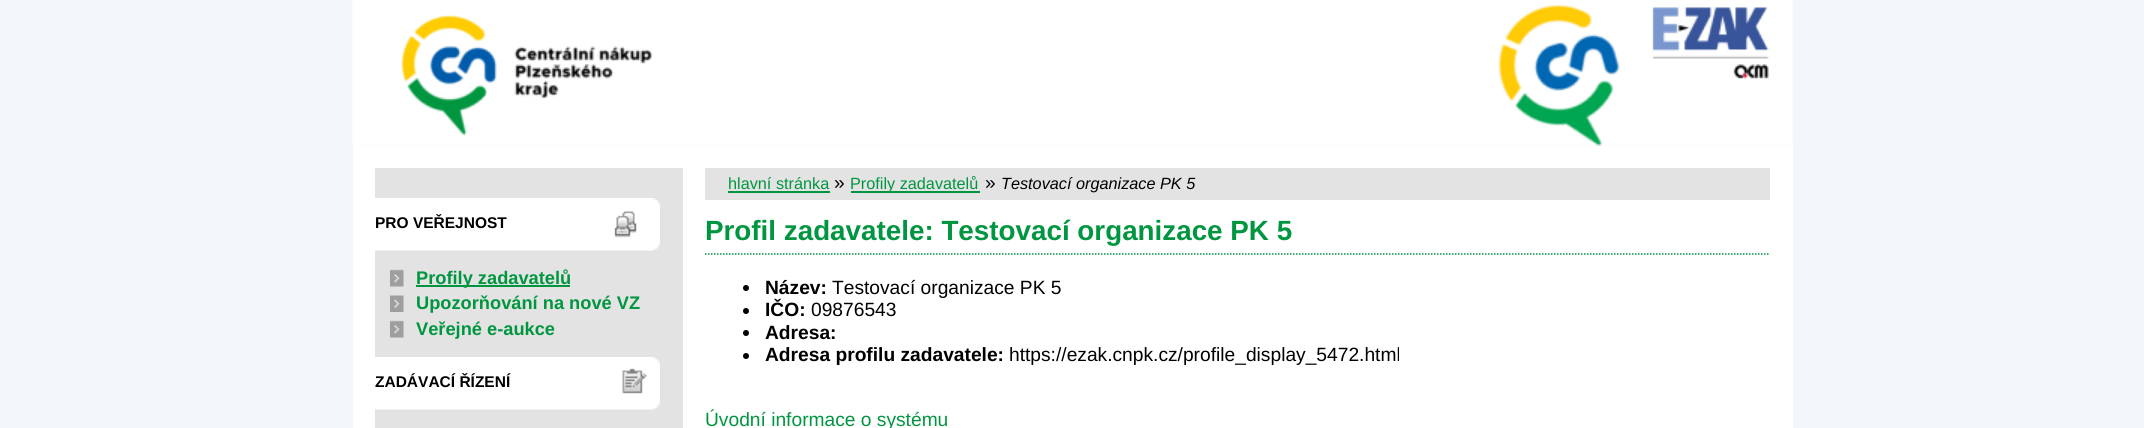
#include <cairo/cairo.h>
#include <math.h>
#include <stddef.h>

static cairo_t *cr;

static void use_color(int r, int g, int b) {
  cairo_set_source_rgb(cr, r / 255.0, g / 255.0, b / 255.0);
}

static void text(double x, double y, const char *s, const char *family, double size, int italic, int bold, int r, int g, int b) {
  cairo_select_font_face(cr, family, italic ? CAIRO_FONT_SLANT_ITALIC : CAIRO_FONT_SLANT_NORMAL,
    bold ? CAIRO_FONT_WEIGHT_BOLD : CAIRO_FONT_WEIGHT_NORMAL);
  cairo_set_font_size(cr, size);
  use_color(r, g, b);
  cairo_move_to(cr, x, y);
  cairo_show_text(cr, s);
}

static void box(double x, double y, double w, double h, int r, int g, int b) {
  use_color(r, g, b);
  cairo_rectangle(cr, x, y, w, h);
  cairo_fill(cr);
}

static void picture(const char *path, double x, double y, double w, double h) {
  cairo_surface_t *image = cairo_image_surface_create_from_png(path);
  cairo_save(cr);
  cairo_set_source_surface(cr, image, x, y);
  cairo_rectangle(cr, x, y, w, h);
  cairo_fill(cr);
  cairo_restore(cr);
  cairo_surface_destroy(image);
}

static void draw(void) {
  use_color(243, 247, 249);
  cairo_paint(cr);
  picture("img_01.png", 352, 0, 1441, 146);
  picture("img_02.png", 353, 4, 342, 132);
  picture("img_03.png", 1652, 7, 117, 72);
  box(353, 146, 1440, 282, 255, 255, 255);
  box(375, 168, 308, 260, 227, 227, 227);
  picture("img_04.png", 375, 198, 285, 53);
  picture("img_05.png", 390, 269, 14, 18);
  box(416, 285, 154, 2, 0, 150, 64);
  picture("img_06.png", 390, 295, 14, 17);
  picture("img_05.png", 390, 320, 14, 18);
  picture("img_07.png", 375, 357, 285, 53);
  box(705, 168, 1065, 32, 227, 227, 227);
  box(728, 191, 102, 2, 0, 150, 64);
  box(851, 191, 129, 2, 0, 150, 64);
  cairo_new_path(cr);
  cairo_move_to(cr, 705, 254);
  cairo_line_to(cr, 1770, 254);
  cairo_set_line_width(cr, 1.5);
  cairo_set_dash(cr, (double[]){1.5, 1.5}, 2, 0);
  cairo_stroke(cr);
  use_color(0, 0, 0);
  cairo_arc(cr, 746, 288, 3, 0, 2 * M_PI);
  cairo_fill(cr);
  cairo_arc(cr, 746, 311, 3, 0, 2 * M_PI);
  cairo_fill(cr);
  cairo_arc(cr, 746, 333, 3, 0, 2 * M_PI);
  cairo_fill(cr);
  cairo_arc(cr, 746, 356, 3, 0, 2 * M_PI);
  cairo_fill(cr);
  text(375, 228, "PRO VEŘEJNOST", "Liberation Sans", 15.5, 0, 1, 0, 0, 0);
  text(416, 284, "Profily zadavatelů", "Liberation Sans", 18.25, 0, 1, 0, 150, 64);
  text(416, 309, "Upozorňování na nové VZ", "Liberation Sans", 18.25, 0, 1, 0, 150, 64);
  text(416, 335, "Veřejné e-aukce", "Liberation Sans", 18.25, 0, 1, 0, 150, 64);
  text(375, 387, "ZADÁVACÍ ŘÍZENÍ", "Liberation Sans", 15.5, 0, 1, 0, 0, 0);
  text(728, 189, "hlavní stránka", "Liberation Sans", 16.25, 0, 0, 0, 150, 64);
  text(834, 189, "»", "Liberation Sans", 19.2, 0, 0, 0, 0, 0);
  text(850, 189, "Profily zadavatelů", "Liberation Sans", 16.25, 0, 0, 0, 150, 64);
  text(985, 189, "»", "Liberation Sans", 19.2, 0, 0, 0, 0, 0);
  text(1001, 189, "Testovací organizace PK 5", "Liberation Sans", 16.25, 1, 0, 0, 0, 0);
  text(705, 240, "Profil zadavatele: Testovací organizace PK 5", "Liberation Sans", 27.8, 0, 1, 0, 150, 64);
  text(765, 294, "Název:", "Liberation Sans", 19.2, 0, 1, 0, 0, 0);
  text(832, 294, "Testovací organizace PK 5", "Liberation Sans", 19.2, 0, 0, 0, 0, 0);
  text(765, 316, "IČO:", "Liberation Sans", 19.2, 0, 1, 0, 0, 0);
  text(811, 316, "09876543", "Liberation Sans", 19.2, 0, 0, 0, 0, 0);
  text(765, 339, "Adresa:", "Liberation Sans", 19.2, 0, 1, 0, 0, 0);
  text(765, 361, "Adresa profilu zadavatele:", "Liberation Sans", 19.2, 0, 1, 0, 0, 0);
  text(1009, 361, "https://ezak.cnpk.cz/profile_display_5472.html", "Liberation Sans", 19.2, 0, 0, 0, 0, 0);
  text(705, 426, "Úvodní informace o systému", "Liberation Sans", 19.2, 0, 0, 0, 150, 64);
}

int main(void) {
  cairo_surface_t *surface = cairo_image_surface_create(CAIRO_FORMAT_RGB24, 2144, 428);
  cr = cairo_create(surface);
  cairo_font_options_t *options = cairo_font_options_create();
  cairo_font_options_set_hint_metrics(options, CAIRO_HINT_METRICS_OFF);
  cairo_font_options_set_hint_style(options, CAIRO_HINT_STYLE_NONE);
  cairo_set_font_options(cr, options);
  cairo_set_miter_limit(cr, 4);
  draw();
  cairo_surface_write_to_png(surface, "out.png");
  cairo_font_options_destroy(options);
  cairo_destroy(cr);
  cairo_surface_destroy(surface);
  return 0;
}
